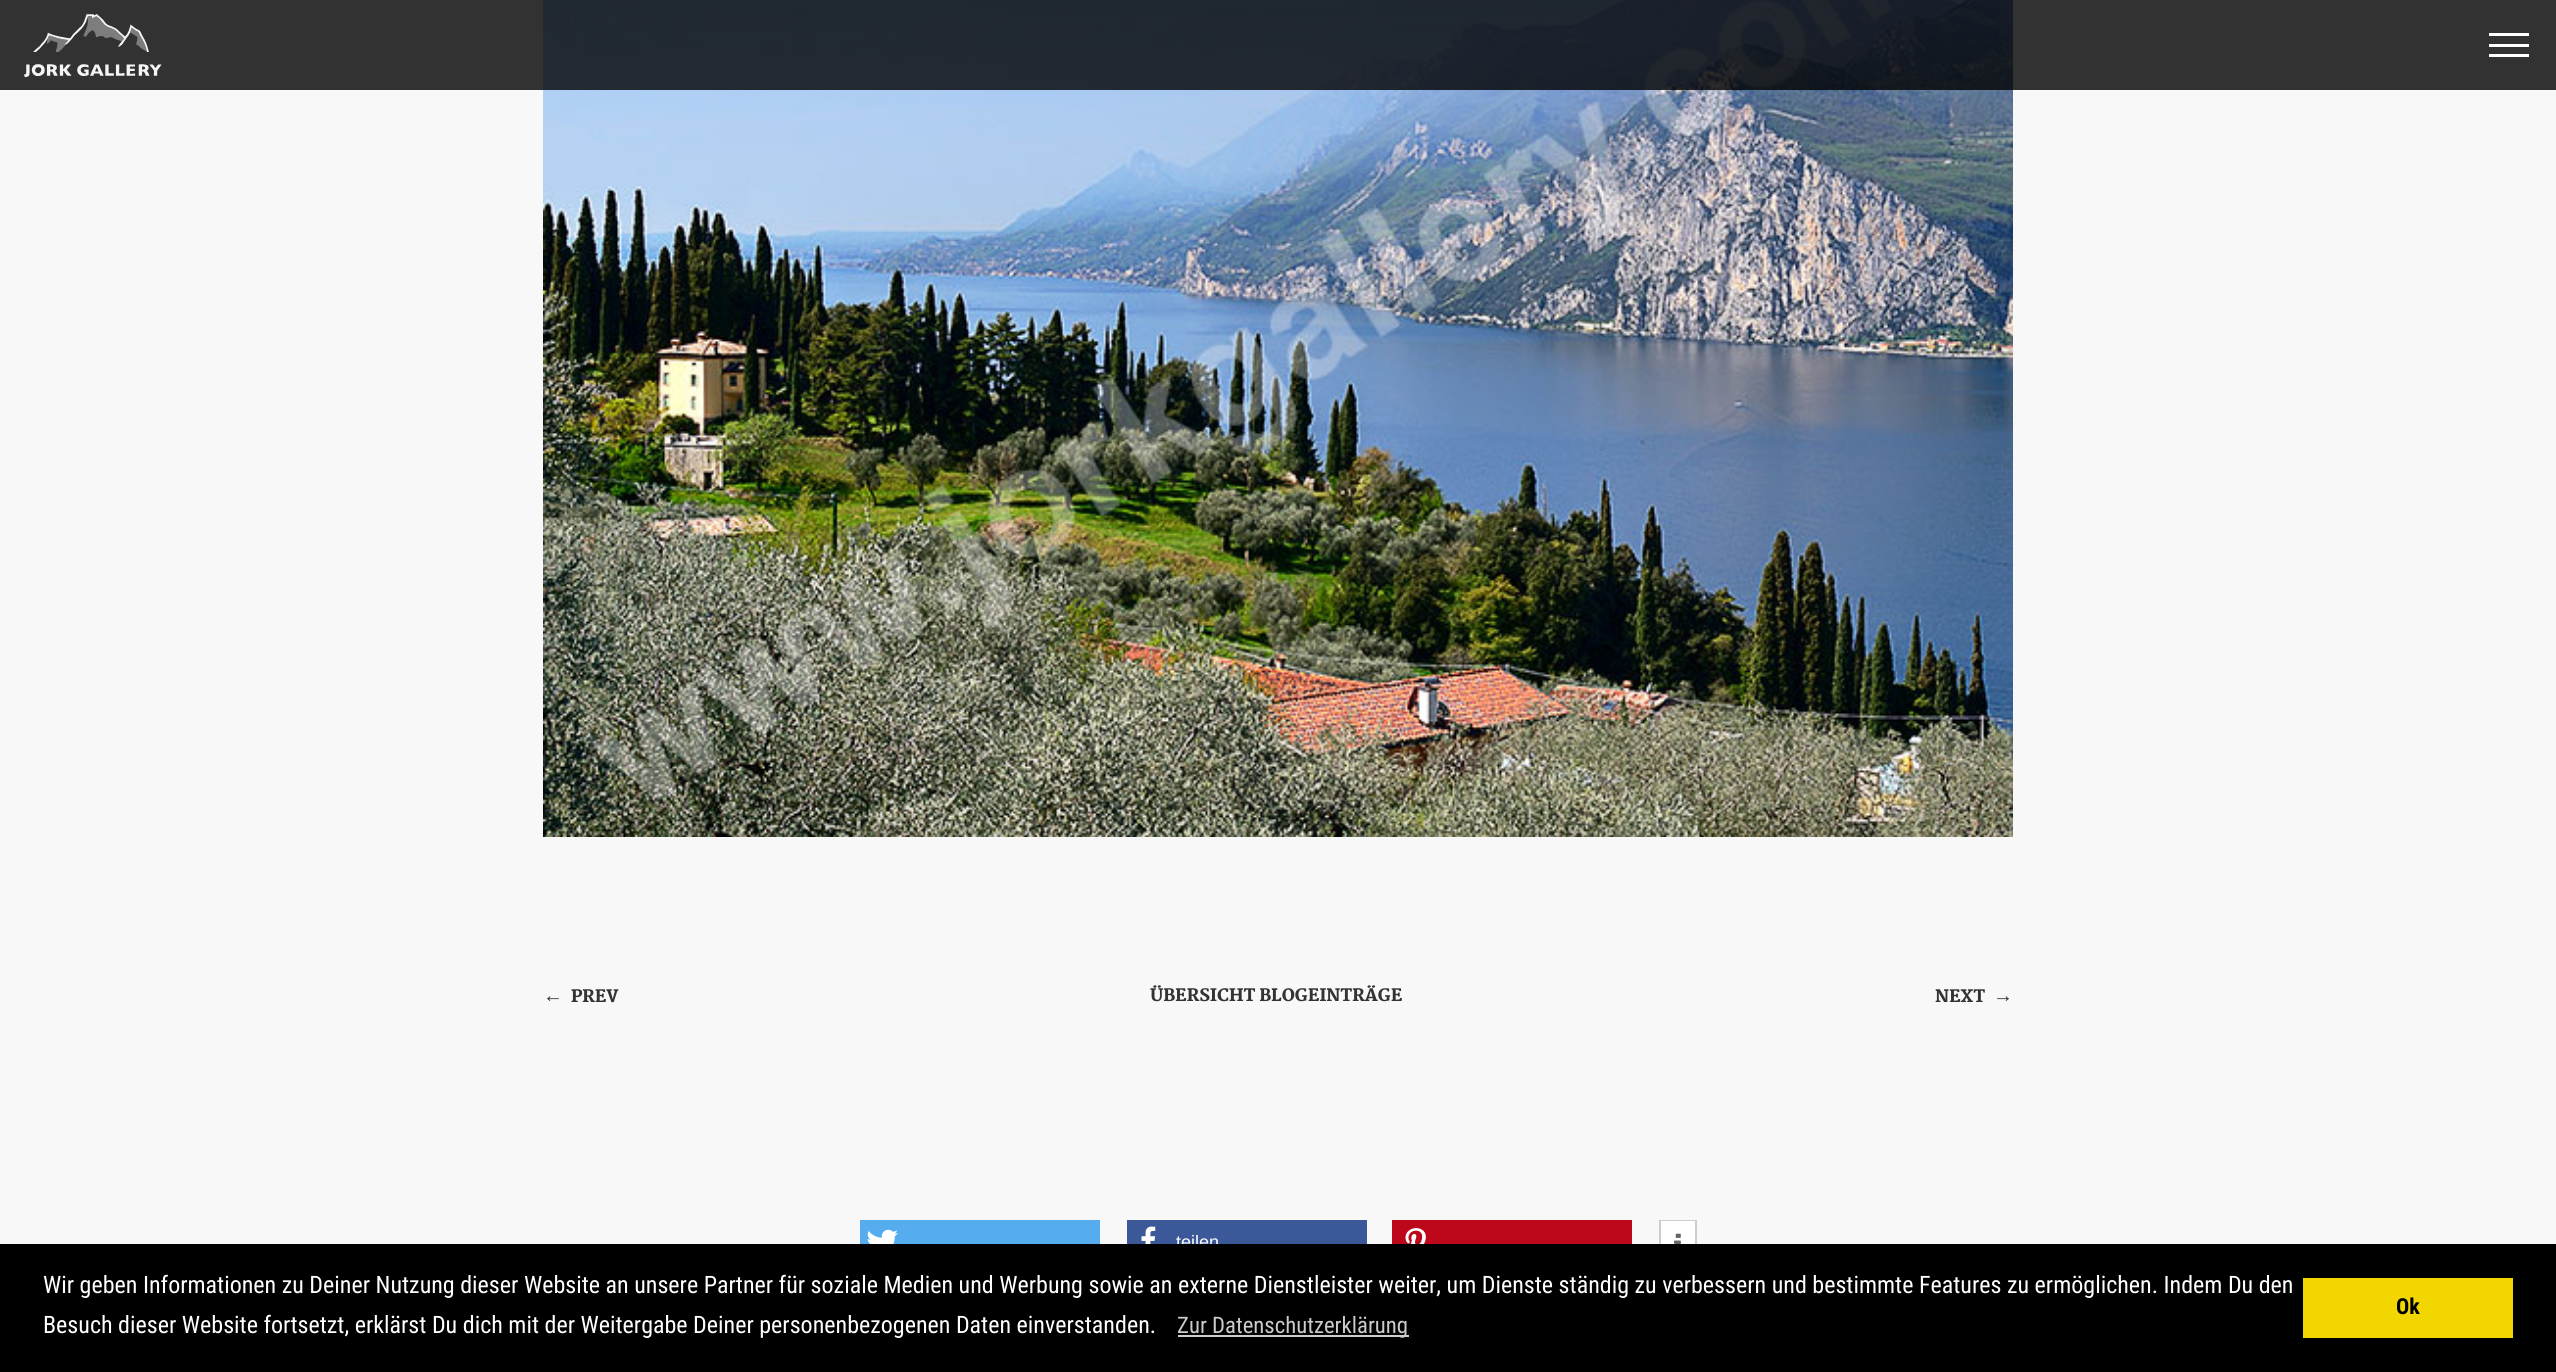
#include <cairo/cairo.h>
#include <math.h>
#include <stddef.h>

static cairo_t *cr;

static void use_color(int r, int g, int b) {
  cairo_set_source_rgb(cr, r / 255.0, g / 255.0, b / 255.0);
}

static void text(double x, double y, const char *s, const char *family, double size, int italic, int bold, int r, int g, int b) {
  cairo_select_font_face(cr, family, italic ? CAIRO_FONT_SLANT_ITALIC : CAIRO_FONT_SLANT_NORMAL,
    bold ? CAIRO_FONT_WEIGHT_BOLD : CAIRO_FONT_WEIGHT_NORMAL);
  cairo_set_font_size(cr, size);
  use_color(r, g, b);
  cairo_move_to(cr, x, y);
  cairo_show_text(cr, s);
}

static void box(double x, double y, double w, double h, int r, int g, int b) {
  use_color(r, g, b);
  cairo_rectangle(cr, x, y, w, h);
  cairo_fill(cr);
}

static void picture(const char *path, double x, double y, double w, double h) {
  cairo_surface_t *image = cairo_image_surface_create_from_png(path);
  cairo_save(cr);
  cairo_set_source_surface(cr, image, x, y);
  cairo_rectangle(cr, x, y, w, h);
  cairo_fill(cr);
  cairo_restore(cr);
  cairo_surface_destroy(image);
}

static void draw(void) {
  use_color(248, 248, 248);
  cairo_paint(cr);
  picture("img_02.png", 543, 0, 1470, 837);
  cairo_set_source_rgba(cr, 0, 0, 0, 0.8);
  cairo_rectangle(cr, 0, 0, 2556, 90);
  cairo_fill(cr);
  picture("img_01.png", 24, 14, 138, 63);
  box(2489, 33, 40, 3, 255, 255, 255);
  box(2489, 44, 40, 3, 255, 255, 255);
  box(2489, 54, 40, 3, 255, 255, 255);
  box(860, 1220, 240, 24, 85, 172, 238);
  picture("img_03.png", 867, 1229, 31, 15);
  box(1127, 1220, 240, 24, 59, 89, 152);
  picture("img_04.png", 1141, 1226, 15, 18);
  box(1392, 1220, 240, 24, 189, 8, 28);
  picture("img_05.png", 1405, 1228, 21, 16);
  cairo_rectangle(cr, 1660, 1221, 36, 43);
  use_color(204, 204, 204);
  cairo_stroke(cr);
  box(1661, 1221, 34, 23, 255, 255, 255);
  picture("img_06.png", 1674, 1233, 7, 11);
  text(543, 1002, "←", "Liberation Sans", 20, 0, 1, 51, 51, 51);
  text(571, 1002, "PREV", "Martel Black", 16.75, 0, 0, 51, 51, 51);
  text(1150, 1001, "ÜBERSICHT BLOGEINTRÄGE", "Martel Black", 16.75, 0, 0, 51, 51, 51);
  text(1935, 1002, "NEXT", "Martel Black", 16.75, 0, 0, 51, 51, 51);
  text(1993, 1002, "→", "Liberation Sans", 20, 0, 1, 51, 51, 51);
  text(1176, 1248, "teilen", "Liberation Sans", 18, 0, 0, 255, 255, 255);
  box(0, 1244, 2556, 128, 0, 0, 0);
  text(43, 1293, "Wir geben Informationen zu Deiner Nutzung dieser Website an unsere Partner für soziale Medien und Werbung sowie an externe Dienstleister weiter, um Dienste ständig zu verbessern und bestimmte Features zu ermöglichen. Indem Du den", "Roboto Condensed", 24, 0, 0, 255, 255, 255);
  text(43, 1333, "Besuch dieser Website fortsetzt, erklärst Du dich mit der Weitergabe Deiner personenbezogenen Daten einverstanden.", "Roboto Condensed", 24, 0, 0, 255, 255, 255);
  box(1178, 1335, 231, 2, 204, 204, 204);
  text(1177, 1333, "Zur Datenschutzerklärung", "Roboto Condensed", 22.75, 0, 0, 204, 204, 204);
  box(2303, 1278, 210, 60, 241, 214, 0);
  text(2396, 1314, "Ok", "Roboto Condensed", 22, 0, 1, 0, 0, 0);
}

int main(void) {
  cairo_surface_t *surface = cairo_image_surface_create(CAIRO_FORMAT_RGB24, 2556, 1372);
  cr = cairo_create(surface);
  cairo_font_options_t *options = cairo_font_options_create();
  cairo_font_options_set_hint_metrics(options, CAIRO_HINT_METRICS_OFF);
  cairo_font_options_set_hint_style(options, CAIRO_HINT_STYLE_NONE);
  cairo_set_font_options(cr, options);
  cairo_set_miter_limit(cr, 4);
  draw();
  cairo_surface_write_to_png(surface, "out.png");
  cairo_font_options_destroy(options);
  cairo_destroy(cr);
  cairo_surface_destroy(surface);
  return 0;
}
